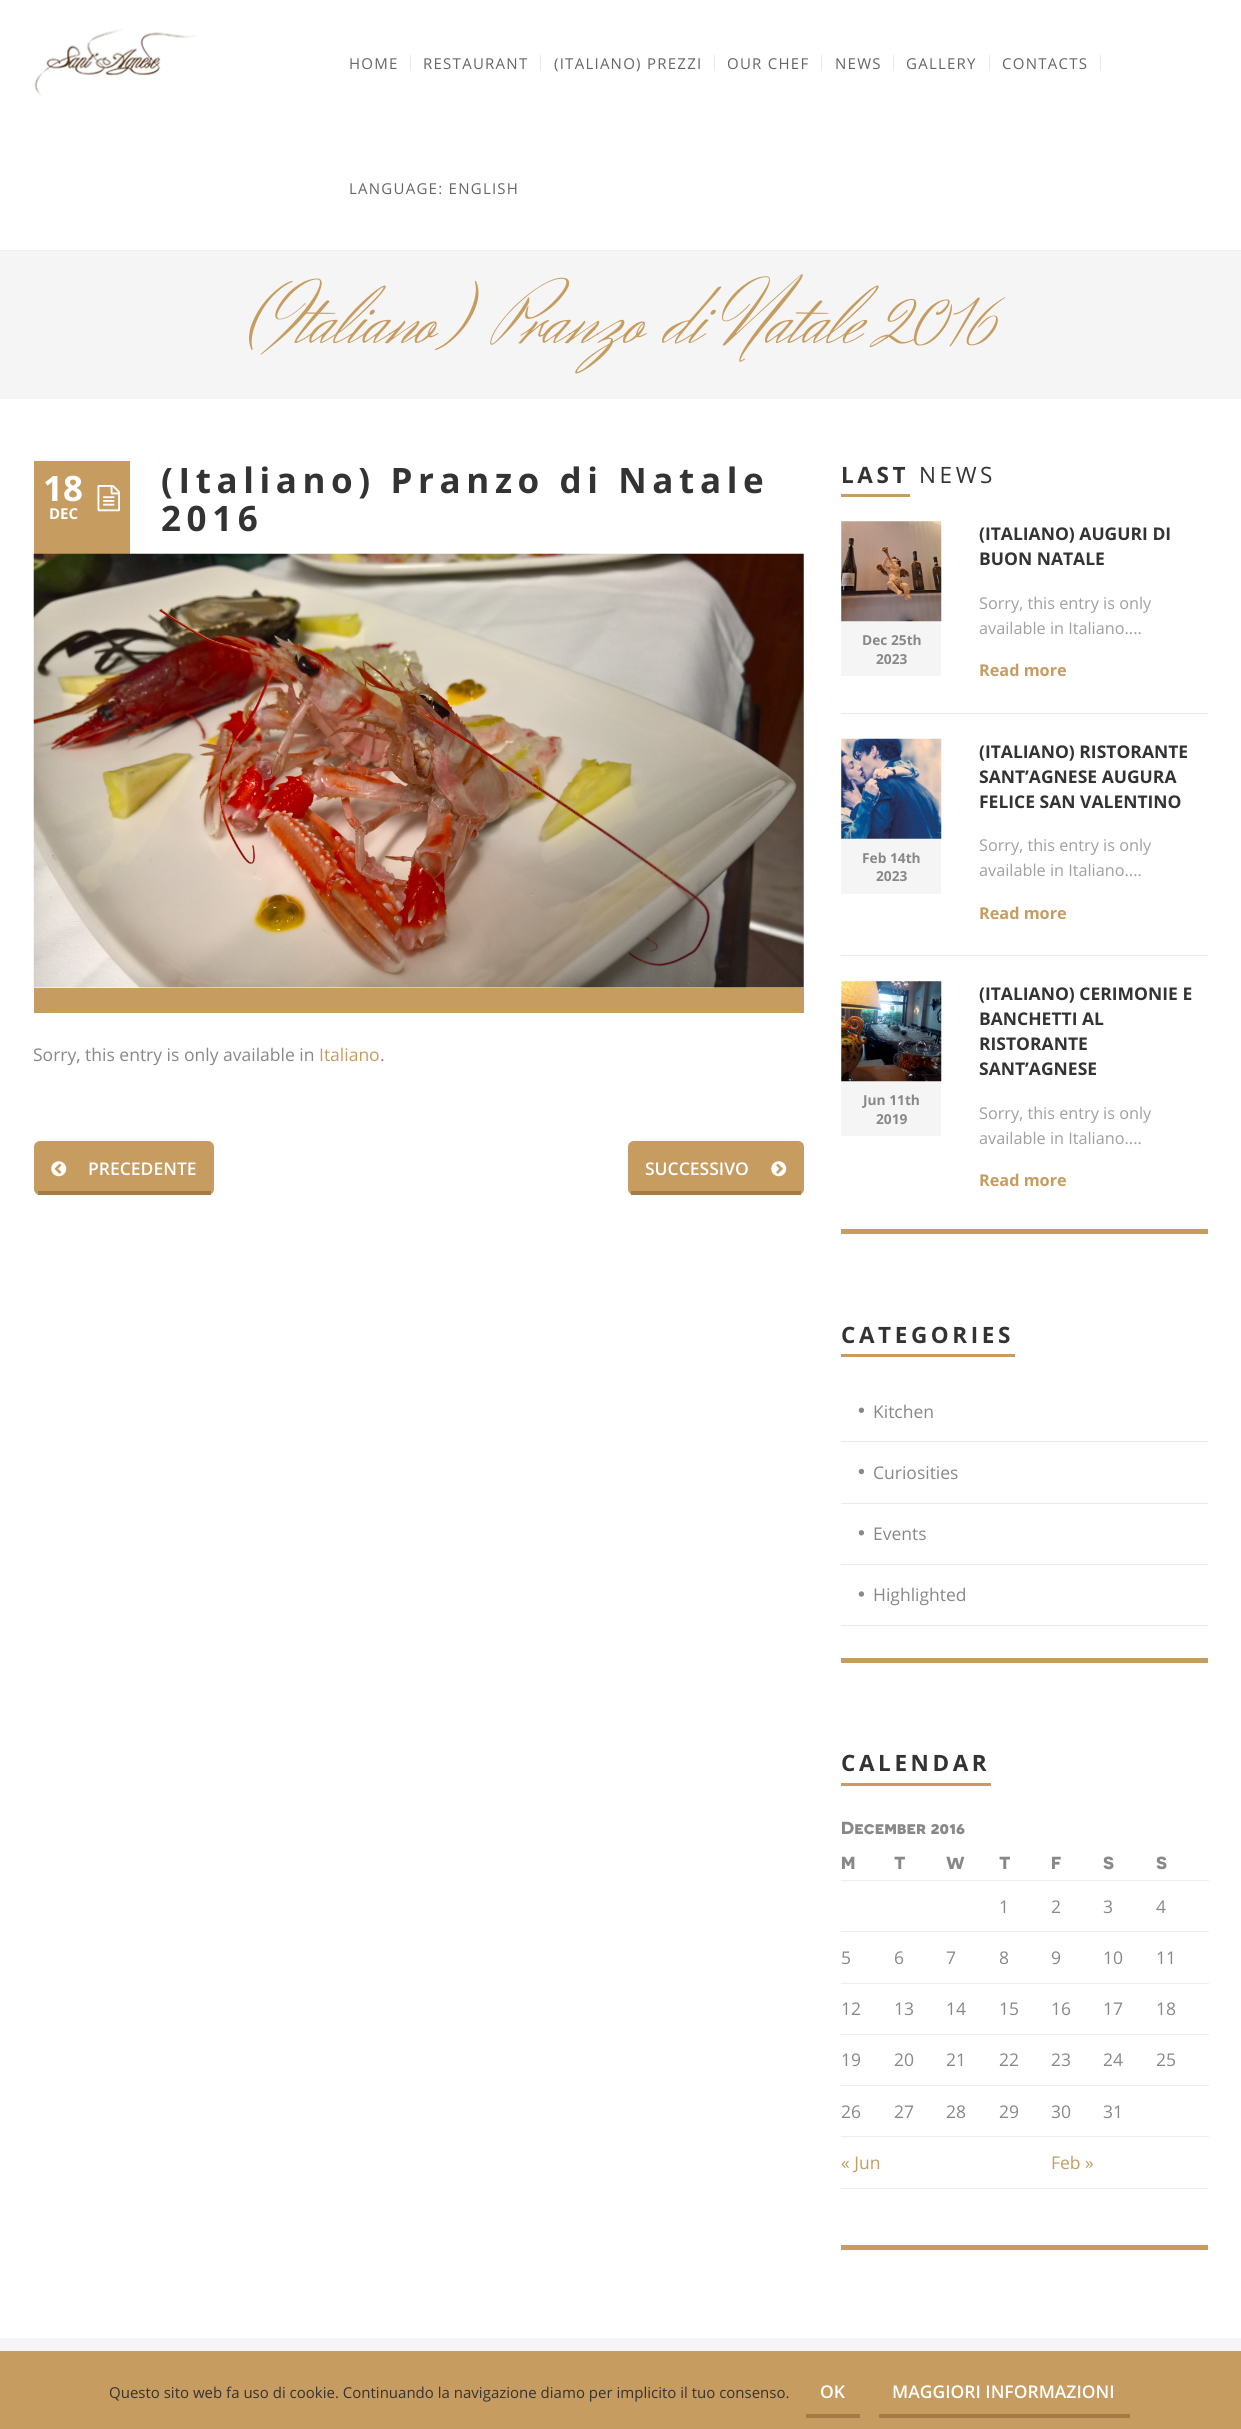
#include <cairo/cairo.h>
#include <math.h>
#include <stddef.h>

static cairo_t *cr;

static void use_color(int r, int g, int b) {
  cairo_set_source_rgb(cr, r / 255.0, g / 255.0, b / 255.0);
}

static void text(double x, double y, const char *s, const char *family, double size, int italic, int bold, int r, int g, int b) {
  cairo_select_font_face(cr, family, italic ? CAIRO_FONT_SLANT_ITALIC : CAIRO_FONT_SLANT_NORMAL,
    bold ? CAIRO_FONT_WEIGHT_BOLD : CAIRO_FONT_WEIGHT_NORMAL);
  cairo_set_font_size(cr, size);
  use_color(r, g, b);
  cairo_move_to(cr, x, y);
  cairo_show_text(cr, s);
}

static void spaced_text(double x, double y, const char *s, double letter, double word) {
  cairo_move_to(cr, x, y);
  while (*s) {
    char ch[5] = {0};
    int n = 0;
    do ch[n++] = *s++; while ((*s & 0xC0) == 0x80);
    cairo_show_text(cr, ch);
    cairo_rel_move_to(cr, letter + word * (*ch == ' '), 0);
  }
}

static void box(double x, double y, double w, double h, int r, int g, int b) {
  use_color(r, g, b);
  cairo_rectangle(cr, x, y, w, h);
  cairo_fill(cr);
}

static void round_rect(double x, double y, double w, double h, double r) {
  cairo_new_sub_path(cr);
  cairo_arc(cr, x + w - r, y + h - r, r, 0, M_PI / 2);
  cairo_arc(cr, x + r, y + h - r, r, M_PI / 2, M_PI);
  cairo_arc(cr, x + r, y + r, r, M_PI, 1.5 * M_PI);
  cairo_arc(cr, x + w - r, y + r, r, 1.5 * M_PI, 2 * M_PI);
  cairo_close_path(cr);
}

static void picture(const char *path, double x, double y, double w, double h) {
  cairo_surface_t *image = cairo_image_surface_create_from_png(path);
  cairo_save(cr);
  cairo_set_source_surface(cr, image, x, y);
  cairo_rectangle(cr, x, y, w, h);
  cairo_fill(cr);
  cairo_restore(cr);
  cairo_surface_destroy(image);
}

static void draw(void) {
  use_color(255, 255, 255);
  cairo_paint(cr);
  box(0, 250, 1241, 1, 239, 239, 239);
  picture("img_01.png", 34, 29, 162, 67);
  box(410, 55, 1, 16, 233, 233, 233);
  box(540, 55, 1, 16, 233, 233, 233);
  box(714, 55, 1, 16, 233, 233, 233);
  box(821, 55, 1, 16, 233, 233, 233);
  box(893, 55, 1, 16, 233, 233, 233);
  box(989, 55, 1, 16, 233, 233, 233);
  box(1100, 55, 1, 16, 233, 233, 233);
  box(0, 251, 1241, 148, 245, 245, 245);
  box(34, 461, 96, 93, 199, 156, 96);
  picture("img_02.png", 97, 485, 23, 27);
  picture("img_03.png", 33, 553, 771, 435);
  box(34, 988, 770, 25, 199, 156, 96);
  round_rect(34, 1141, 180, 54, 6);
  cairo_fill(cr);
  box(38, 1191, 173, 4, 163, 123, 68);
  picture("img_04.png", 51, 1161, 16, 16);
  use_color(199, 156, 96);
  round_rect(628, 1141, 176, 54, 6);
  cairo_fill(cr);
  box(631, 1191, 170, 4, 163, 123, 68);
  picture("img_05.png", 771, 1161, 16, 16);
  box(841, 1229, 367, 5, 199, 156, 96);
  box(841, 494, 69, 3, 199, 156, 96);
  box(841, 713, 367, 1, 233, 233, 233);
  box(841, 621, 100, 55, 245, 245, 245);
  picture("img_06.png", 841, 521, 101, 101);
  box(841, 955, 367, 1, 233, 233, 233);
  picture("img_07.png", 841, 738, 101, 101);
  box(841, 839, 100, 55, 245, 245, 245);
  box(841, 1081, 100, 55, 245, 245, 245);
  picture("img_08.png", 841, 981, 101, 101);
  box(841, 1658, 367, 5, 199, 156, 96);
  box(841, 1354, 174, 3, 199, 156, 96);
  box(841, 1441, 367, 1, 233, 233, 233);
  picture("img_09.png", 858, 1407, 7, 6);
  box(841, 1503, 367, 1, 233, 233, 233);
  picture("img_10.png", 858, 1468, 7, 7);
  box(841, 1564, 367, 1, 233, 233, 233);
  picture("img_11.png", 858, 1530, 7, 6);
  box(841, 1625, 367, 1, 233, 233, 233);
  picture("img_12.png", 858, 1591, 7, 6);
  box(841, 2245, 367, 5, 199, 156, 96);
  box(841, 1783, 150, 3, 199, 156, 96);
  box(841, 2188, 367, 1, 237, 237, 237);
  box(841, 1880, 368, 1, 237, 237, 237);
  box(841, 1931, 368, 1, 237, 237, 237);
  box(841, 1983, 368, 1, 237, 237, 237);
  box(841, 2034, 368, 1, 237, 237, 237);
  box(841, 2085, 368, 1, 237, 237, 237);
  box(841, 2136, 368, 1, 237, 237, 237);
  box(0, 2338, 1241, 13, 245, 245, 245);
  box(0, 2351, 1241, 78, 199, 156, 96);
  box(806, 2414, 54, 4, 163, 123, 68);
  box(879, 2414, 251, 4, 163, 123, 68);
  cairo_select_font_face(cr, "Open Sans", CAIRO_FONT_SLANT_NORMAL, CAIRO_FONT_WEIGHT_NORMAL);
  cairo_set_font_size(cr, 15);
  use_color(101, 101, 101);
  spaced_text(349, 69, "HOME", 1.25, 0);
  spaced_text(423, 69, "RESTAURANT", 1.25, 0);
  spaced_text(554, 69, "(ITALIANO) PREZZI", 1.25, 0);
  spaced_text(727, 69, "OUR CHEF", 1.25, 0);
  spaced_text(835, 69, "NEWS", 1.25, 0);
  spaced_text(906, 69, "GALLERY", 1.25, 0);
  spaced_text(1002, 69, "CONTACTS", 1.25, 0);
  spaced_text(349, 194, "LANGUAGE: ENGLISH", 1.25, 0);
  text(244, 343, "(Italiano) Pranzo di Natale 2016", "Herr Von Muellerhoff", 85, 0, 0, 199, 156, 96);
  text(43, 501, "18", "Open Sans", 35, 0, 1, 255, 255, 255);
  text(49, 519, "DEC", "Open Sans", 15, 0, 1, 255, 255, 255);
  cairo_set_font_size(cr, 35);
  use_color(51, 51, 51);
  spaced_text(161, 493, "(Italiano) Pranzo di Natale", 5.6, 0);
  spaced_text(161, 531, "2016", 5.6, 0);
  text(33, 1061, "Sorry, this entry is only available in", "Open Sans", 17.5, 0, 0, 136, 136, 136);
  text(319, 1061, "Italiano", "Open Sans", 17.5, 0, 0, 199, 156, 96);
  text(380, 1061, ".", "Open Sans", 17.5, 0, 0, 136, 136, 136);
  text(88, 1175, "PRECEDENTE", "Open Sans SemiBold", 17.5, 0, 0, 255, 255, 255);
  text(645, 1175, "SUCCESSIVO", "Open Sans SemiBold", 17.5, 0, 0, 255, 255, 255);
  cairo_select_font_face(cr, "Open Sans", CAIRO_FONT_SLANT_NORMAL, CAIRO_FONT_WEIGHT_BOLD);
  cairo_set_font_size(cr, 22.5);
  use_color(51, 51, 51);
  spaced_text(841, 483, "LAST", 3.6, 0);
  cairo_select_font_face(cr, "Open Sans", CAIRO_FONT_SLANT_NORMAL, CAIRO_FONT_WEIGHT_NORMAL);
  spaced_text(919, 483, "NEWS", 3.6, 0);
  text(862, 645, "Dec 25th", "Open Sans", 13.75, 0, 1, 136, 136, 136);
  text(876, 664, "2023", "Open Sans", 13.75, 0, 1, 136, 136, 136);
  text(979, 540, "(ITALIANO) AUGURI DI", "Open Sans", 17.5, 0, 1, 51, 51, 51);
  text(979, 565, "BUON NATALE", "Open Sans", 17.5, 0, 1, 51, 51, 51);
  text(979, 609, "Sorry, this entry is only", "Open Sans", 16.25, 0, 0, 160, 160, 160);
  text(979, 634, "available in Italiano....", "Open Sans", 16.25, 0, 0, 160, 160, 160);
  text(979, 676, "Read more", "Open Sans", 16.25, 0, 1, 199, 156, 96);
  text(862, 863, "Feb 14th", "Open Sans", 13.75, 0, 1, 136, 136, 136);
  text(876, 881, "2023", "Open Sans", 13.75, 0, 1, 136, 136, 136);
  text(979, 758, "(ITALIANO) RISTORANTE", "Open Sans", 17.5, 0, 1, 51, 51, 51);
  text(979, 783, "SANT’AGNESE AUGURA", "Open Sans", 17.5, 0, 1, 51, 51, 51);
  text(979, 808, "FELICE SAN VALENTINO", "Open Sans", 17.5, 0, 1, 51, 51, 51);
  text(979, 851, "Sorry, this entry is only", "Open Sans", 16.25, 0, 0, 160, 160, 160);
  text(979, 876, "available in Italiano....", "Open Sans", 16.25, 0, 0, 160, 160, 160);
  text(979, 919, "Read more", "Open Sans", 16.25, 0, 1, 199, 156, 96);
  text(863, 1105, "Jun 11th", "Open Sans", 13.75, 0, 1, 136, 136, 136);
  text(876, 1124, "2019", "Open Sans", 13.75, 0, 1, 136, 136, 136);
  text(979, 1000, "(ITALIANO) CERIMONIE E", "Open Sans", 17.5, 0, 1, 51, 51, 51);
  text(979, 1025, "BANCHETTI AL", "Open Sans", 17.5, 0, 1, 51, 51, 51);
  text(979, 1050, "RISTORANTE", "Open Sans", 17.5, 0, 1, 51, 51, 51);
  text(979, 1075, "SANT’AGNESE", "Open Sans", 17.5, 0, 1, 51, 51, 51);
  text(979, 1119, "Sorry, this entry is only", "Open Sans", 16.25, 0, 0, 160, 160, 160);
  text(979, 1144, "available in Italiano....", "Open Sans", 16.25, 0, 0, 160, 160, 160);
  text(979, 1186, "Read more", "Open Sans", 16.25, 0, 1, 199, 156, 96);
  cairo_set_font_size(cr, 22.5);
  use_color(51, 51, 51);
  spaced_text(841, 1343, "CATEGORIES", 3.6, 0);
  text(873, 1418, "Kitchen", "Open Sans", 17.5, 0, 0, 136, 136, 136);
  text(873, 1479, "Curiosities", "Open Sans", 17.5, 0, 0, 136, 136, 136);
  text(873, 1540, "Events", "Open Sans", 17.5, 0, 0, 136, 136, 136);
  text(873, 1601, "Highlighted", "Open Sans", 17.5, 0, 0, 136, 136, 136);
  cairo_select_font_face(cr, "Open Sans", CAIRO_FONT_SLANT_NORMAL, CAIRO_FONT_WEIGHT_BOLD);
  cairo_set_font_size(cr, 22.5);
  use_color(51, 51, 51);
  spaced_text(841, 1771, "CALENDAR", 3.6, 0);
  text(841, 1834, "December 2016", "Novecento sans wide", 17.5, 0, 1, 136, 136, 136);
  text(841, 1869, "M", "Novecento sans wide", 17.5, 0, 1, 136, 136, 136);
  text(894, 1869, "T", "Novecento sans wide", 17.5, 0, 1, 136, 136, 136);
  text(946, 1869, "W", "Novecento sans wide", 17.5, 0, 1, 136, 136, 136);
  text(999, 1869, "T", "Novecento sans wide", 17.5, 0, 1, 136, 136, 136);
  text(1051, 1869, "F", "Novecento sans wide", 17.5, 0, 1, 136, 136, 136);
  text(1103, 1869, "S", "Novecento sans wide", 17.5, 0, 1, 136, 136, 136);
  text(1156, 1869, "S", "Novecento sans wide", 17.5, 0, 1, 136, 136, 136);
  text(999, 1913, "1", "Open Sans", 17.5, 0, 0, 136, 136, 136);
  text(1051, 1913, "2", "Open Sans", 17.5, 0, 0, 136, 136, 136);
  text(1103, 1913, "3", "Open Sans", 17.5, 0, 0, 136, 136, 136);
  text(1156, 1913, "4", "Open Sans", 17.5, 0, 0, 136, 136, 136);
  text(841, 1964, "5", "Open Sans", 17.5, 0, 0, 136, 136, 136);
  text(894, 1964, "6", "Open Sans", 17.5, 0, 0, 136, 136, 136);
  text(946, 1964, "7", "Open Sans", 17.5, 0, 0, 136, 136, 136);
  text(999, 1964, "8", "Open Sans", 17.5, 0, 0, 136, 136, 136);
  text(1051, 1964, "9", "Open Sans", 17.5, 0, 0, 136, 136, 136);
  text(1103, 1964, "10", "Open Sans", 17.5, 0, 0, 136, 136, 136);
  text(1156, 1964, "11", "Open Sans", 17.5, 0, 0, 136, 136, 136);
  text(841, 2015, "12", "Open Sans", 17.5, 0, 0, 136, 136, 136);
  text(894, 2015, "13", "Open Sans", 17.5, 0, 0, 136, 136, 136);
  text(946, 2015, "14", "Open Sans", 17.5, 0, 0, 136, 136, 136);
  text(999, 2015, "15", "Open Sans", 17.5, 0, 0, 136, 136, 136);
  text(1051, 2015, "16", "Open Sans", 17.5, 0, 0, 136, 136, 136);
  text(1103, 2015, "17", "Open Sans", 17.5, 0, 0, 136, 136, 136);
  text(1156, 2015, "18", "Open Sans", 17.5, 0, 0, 136, 136, 136);
  text(841, 2066, "19", "Open Sans", 17.5, 0, 0, 136, 136, 136);
  text(894, 2066, "20", "Open Sans", 17.5, 0, 0, 136, 136, 136);
  text(946, 2066, "21", "Open Sans", 17.5, 0, 0, 136, 136, 136);
  text(999, 2066, "22", "Open Sans", 17.5, 0, 0, 136, 136, 136);
  text(1051, 2066, "23", "Open Sans", 17.5, 0, 0, 136, 136, 136);
  text(1103, 2066, "24", "Open Sans", 17.5, 0, 0, 136, 136, 136);
  text(1156, 2066, "25", "Open Sans", 17.5, 0, 0, 136, 136, 136);
  text(841, 2118, "26", "Open Sans", 17.5, 0, 0, 136, 136, 136);
  text(894, 2118, "27", "Open Sans", 17.5, 0, 0, 136, 136, 136);
  text(946, 2118, "28", "Open Sans", 17.5, 0, 0, 136, 136, 136);
  text(999, 2118, "29", "Open Sans", 17.5, 0, 0, 136, 136, 136);
  text(1051, 2118, "30", "Open Sans", 17.5, 0, 0, 136, 136, 136);
  text(1103, 2118, "31", "Open Sans", 17.5, 0, 0, 136, 136, 136);
  text(841, 2169, "« Jun", "Open Sans", 17.5, 0, 0, 199, 156, 96);
  text(1051, 2169, "Feb »", "Open Sans", 17.5, 0, 0, 199, 156, 96);
  text(109, 2398, "Questo sito web fa uso di cookie. Continuando la navigazione diamo per implicito il tuo consenso.", "Open Sans", 15, 0, 0, 51, 51, 51);
  text(820, 2398, "OK", "Open Sans SemiBold", 17.5, 0, 0, 255, 255, 255);
  text(892, 2398, "MAGGIORI INFORMAZIONI", "Open Sans SemiBold", 17.5, 0, 0, 255, 255, 255);
}

int main(void) {
  cairo_surface_t *surface = cairo_image_surface_create(CAIRO_FORMAT_RGB24, 1241, 2429);
  cr = cairo_create(surface);
  cairo_font_options_t *options = cairo_font_options_create();
  cairo_font_options_set_hint_metrics(options, CAIRO_HINT_METRICS_OFF);
  cairo_font_options_set_hint_style(options, CAIRO_HINT_STYLE_NONE);
  cairo_set_font_options(cr, options);
  cairo_set_miter_limit(cr, 4);
  draw();
  cairo_surface_write_to_png(surface, "out.png");
  cairo_font_options_destroy(options);
  cairo_destroy(cr);
  cairo_surface_destroy(surface);
  return 0;
}
